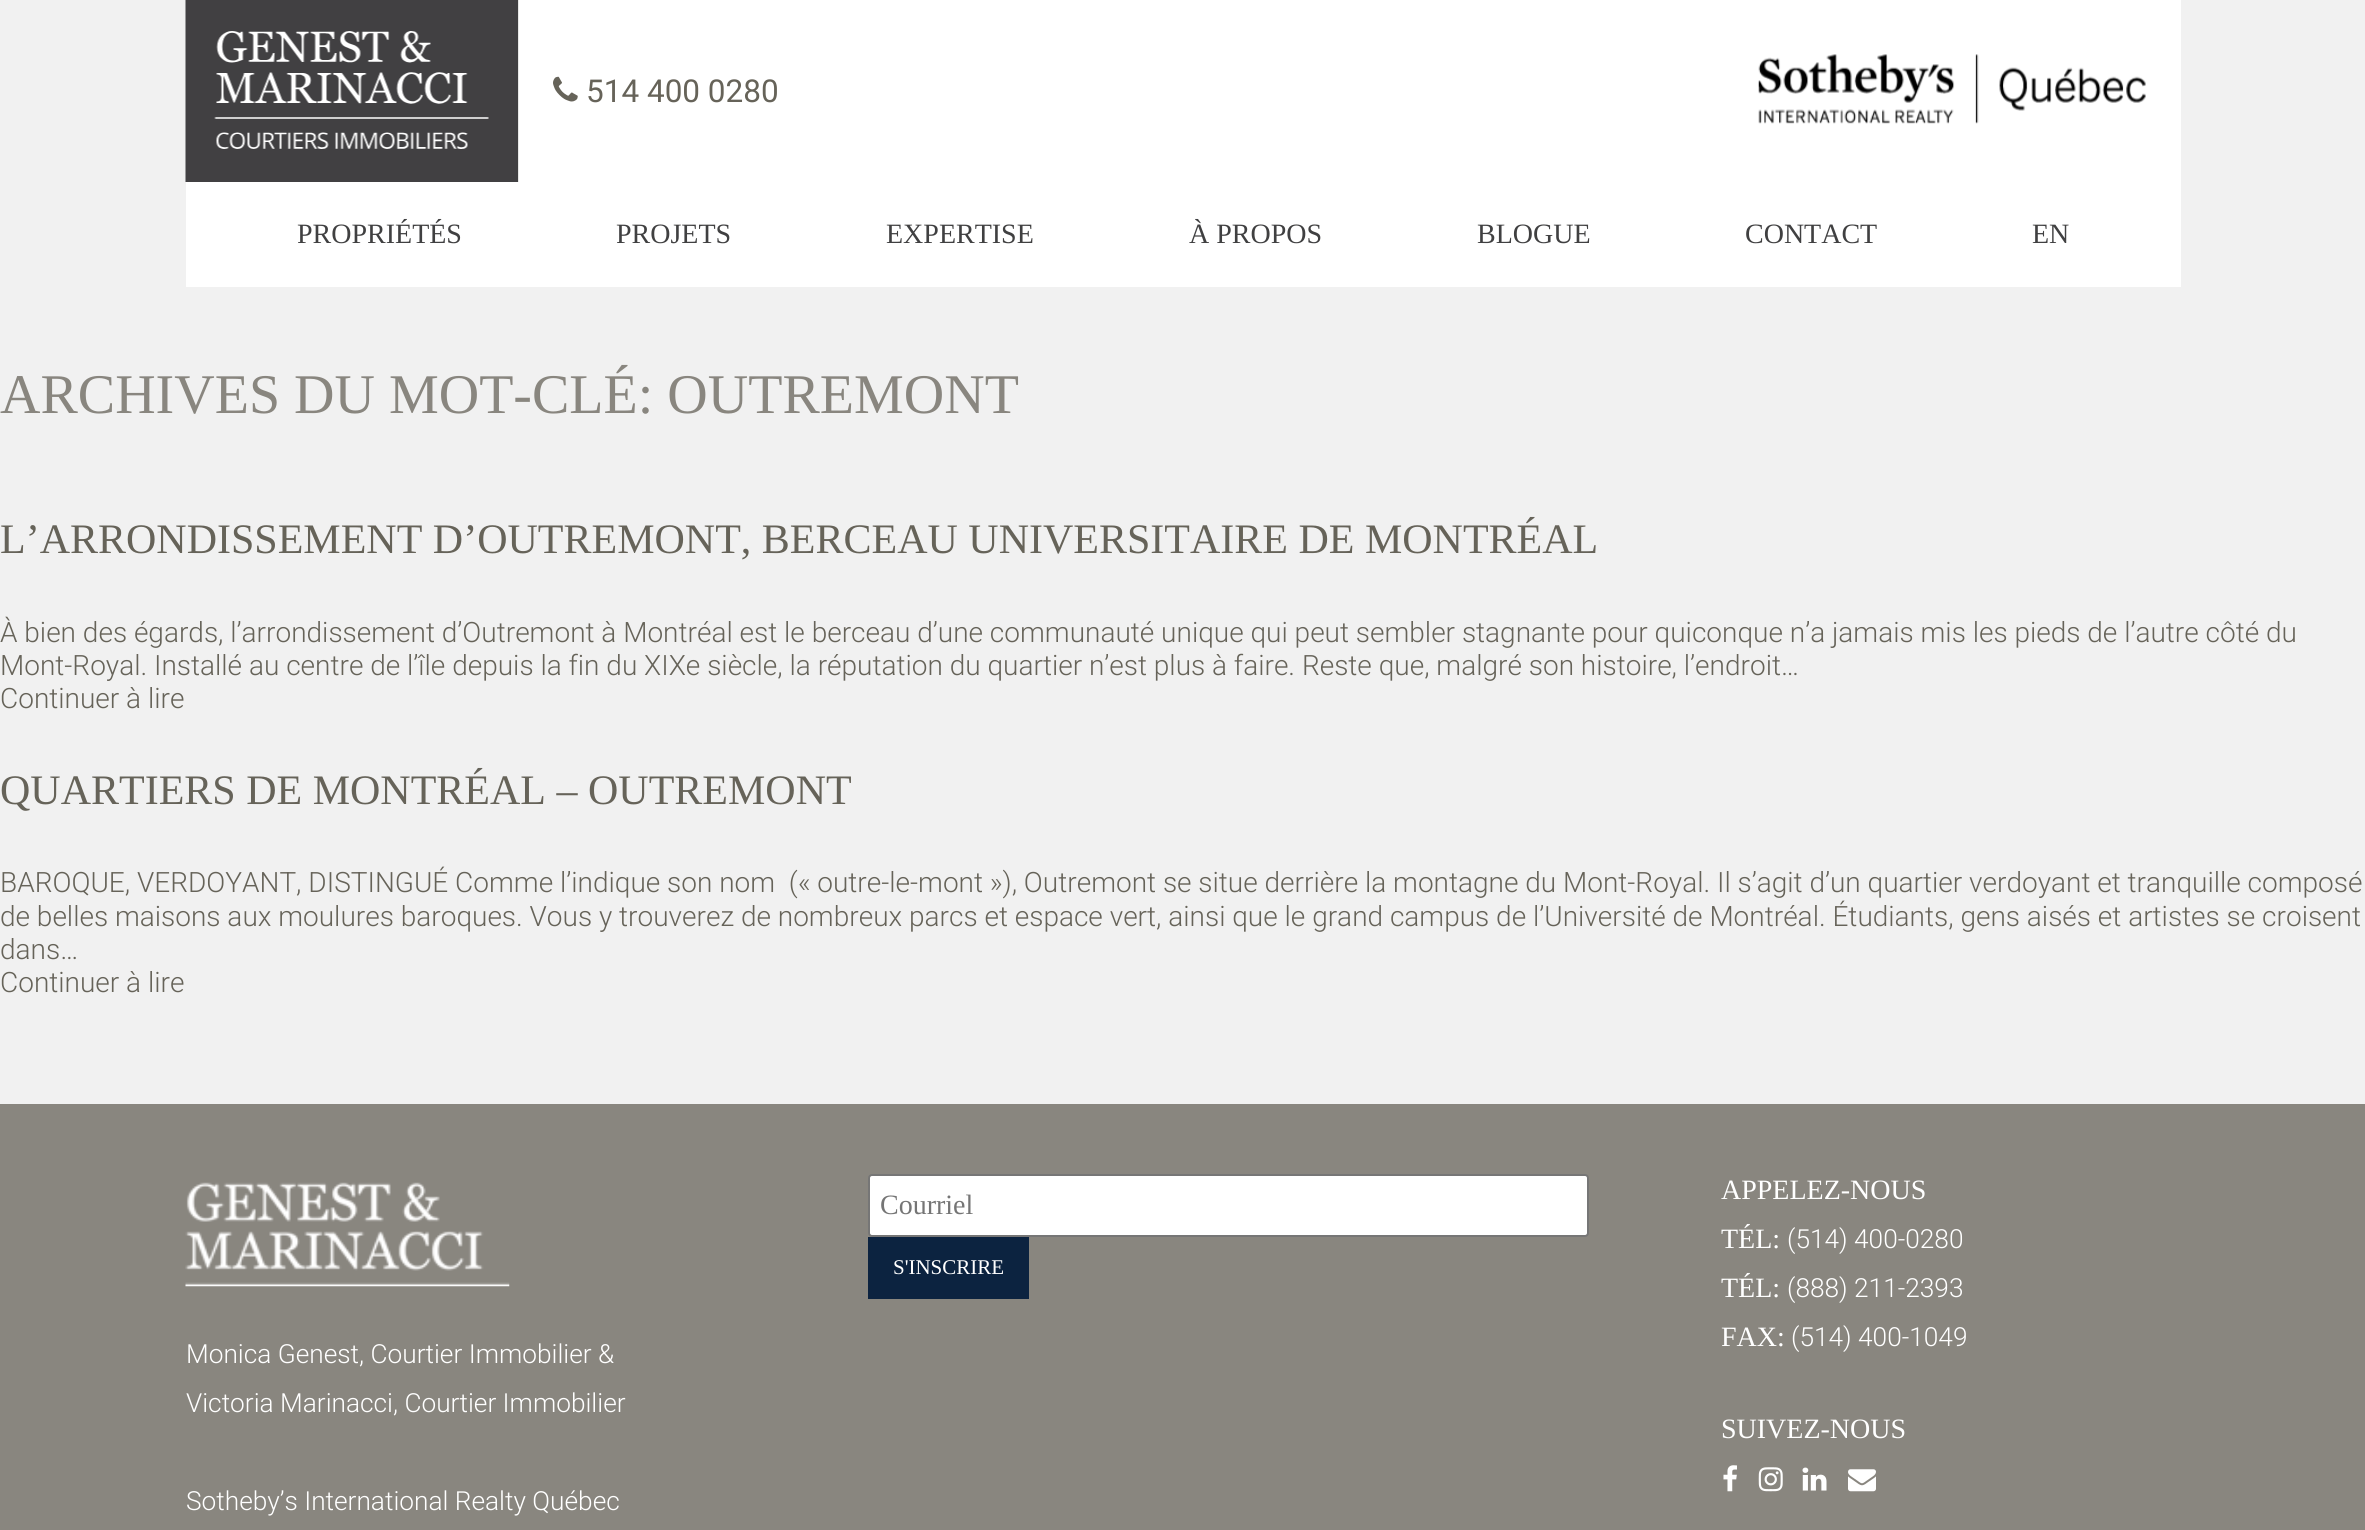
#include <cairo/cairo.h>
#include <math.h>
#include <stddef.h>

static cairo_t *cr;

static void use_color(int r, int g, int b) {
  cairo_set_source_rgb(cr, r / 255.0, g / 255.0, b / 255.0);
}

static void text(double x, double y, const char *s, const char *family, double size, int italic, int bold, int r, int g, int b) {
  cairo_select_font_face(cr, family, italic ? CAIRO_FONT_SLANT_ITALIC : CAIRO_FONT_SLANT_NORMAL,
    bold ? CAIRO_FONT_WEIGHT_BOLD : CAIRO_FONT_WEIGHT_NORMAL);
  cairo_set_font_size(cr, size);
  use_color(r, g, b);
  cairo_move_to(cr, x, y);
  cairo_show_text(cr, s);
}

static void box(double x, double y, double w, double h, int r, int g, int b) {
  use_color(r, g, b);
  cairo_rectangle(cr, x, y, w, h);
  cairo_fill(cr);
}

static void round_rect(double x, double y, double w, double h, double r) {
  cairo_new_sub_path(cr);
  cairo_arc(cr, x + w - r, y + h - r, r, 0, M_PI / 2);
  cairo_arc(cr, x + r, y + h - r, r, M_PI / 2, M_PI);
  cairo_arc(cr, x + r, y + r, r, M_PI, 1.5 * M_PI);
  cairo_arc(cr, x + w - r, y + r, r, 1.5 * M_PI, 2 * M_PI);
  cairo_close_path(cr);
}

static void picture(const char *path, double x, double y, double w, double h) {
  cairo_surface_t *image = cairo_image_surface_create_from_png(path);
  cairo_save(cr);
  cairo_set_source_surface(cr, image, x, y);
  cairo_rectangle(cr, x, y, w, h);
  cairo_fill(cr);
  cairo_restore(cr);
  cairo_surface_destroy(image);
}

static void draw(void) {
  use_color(241, 241, 241);
  cairo_paint(cr);
  box(518, 0, 1663, 182, 255, 255, 255);
  box(517, 0, 1, 182, 64, 64, 65);
  picture("img_01.png", 185, 0, 334, 182);
  picture("img_02.png", 553, 76, 25, 26);
  picture("img_03.png", 1758, 54, 388, 70);
  box(186, 182, 1995, 105, 255, 255, 255);
  box(0, 1104, 2365, 426, 137, 134, 127);
  use_color(255, 255, 255);
  round_rect(869, 1175, 719, 61, 3);
  cairo_fill_preserve(cr);
  use_color(118, 118, 118);
  cairo_stroke(cr);
  box(868, 1237, 161, 62, 12, 35, 64);
  picture("img_04.png", 1723, 1465, 14, 27);
  picture("img_05.png", 1758, 1467, 25, 25);
  picture("img_06.png", 1802, 1467, 25, 24);
  picture("img_07.png", 1848, 1469, 28, 23);
  picture("img_08.png", 185, 1182, 325, 105);
  text(586, 102, "514 400 0280", "Roboto", 31.5, 0, 0, 102, 99, 89);
  text(297, 243, "PROPRIÉTÉS", "Liberation Serif", 28, 0, 0, 64, 64, 65);
  text(616, 243, "PROJETS", "Liberation Serif", 28, 0, 0, 64, 64, 65);
  text(886, 243, "EXPERTISE", "Liberation Serif", 28, 0, 0, 64, 64, 65);
  text(1189, 243, "À PROPOS", "Liberation Serif", 28, 0, 0, 64, 64, 65);
  text(1477, 243, "BLOGUE", "Liberation Serif", 28, 0, 0, 64, 64, 65);
  text(1745, 243, "CONTACT", "Liberation Serif", 28, 0, 0, 64, 64, 65);
  text(2032, 243, "EN", "Liberation Serif", 28, 0, 0, 64, 64, 65);
  text(0, 413, "ARCHIVES DU MOT-CLÉ: OUTREMONT", "Liberation Serif", 56, 0, 0, 137, 134, 127);
  text(0, 553, "L’ARRONDISSEMENT D’OUTREMONT, BERCEAU UNIVERSITAIRE DE MONTRÉAL", "Liberation Serif", 42, 0, 0, 102, 99, 89);
  text(0, 642, "À bien des égards, l’arrondissement d’Outremont à Montréal est le berceau d’une communauté unique qui peut sembler stagnante pour quiconque n’a jamais mis les pieds de l’autre côté du", "Roboto Light", 28, 0, 0, 102, 99, 89);
  text(0, 675, "Mont-Royal. Installé au centre de l’île depuis la fin du XIXe siècle, la réputation du quartier n’est plus à faire. Reste que, malgré son histoire, l’endroit…", "Roboto Light", 28, 0, 0, 102, 99, 89);
  text(0, 708, "Continuer à lire", "Roboto Light", 28, 0, 0, 102, 99, 89);
  text(0, 804, "QUARTIERS DE MONTRÉAL – OUTREMONT", "Liberation Serif", 42, 0, 0, 102, 99, 89);
  text(0, 892, "BAROQUE, VERDOYANT, DISTINGUÉ Comme l’indique son nom  (« outre-le-mont »), Outremont se situe derrière la montagne du Mont-Royal. Il s’agit d’un quartier verdoyant et tranquille composé", "Roboto Light", 28, 0, 0, 102, 99, 89);
  text(0, 926, "de belles maisons aux moulures baroques. Vous y trouverez de nombreux parcs et espace vert, ainsi que le grand campus de l’Université de Montréal. Étudiants, gens aisés et artistes se croisent", "Roboto Light", 28, 0, 0, 102, 99, 89);
  text(0, 959, "dans…", "Roboto Light", 28, 0, 0, 102, 99, 89);
  text(0, 992, "Continuer à lire", "Roboto Light", 28, 0, 0, 102, 99, 89);
  text(880, 1214, "Courriel", "Liberation Serif", 28, 0, 0, 117, 117, 117);
  text(893, 1274, "S'INSCRIRE", "Liberation Serif", 21, 0, 0, 255, 255, 255);
  text(1721, 1199, "APPELEZ-NOUS", "Liberation Serif", 28, 0, 0, 255, 255, 255);
  text(1721, 1248, "TÉL:", "Liberation Serif", 28, 0, 0, 255, 255, 255);
  text(1787, 1248, "(514) 400-0280", "Roboto Light", 26.25, 0, 0, 255, 255, 255);
  text(1721, 1297, "TÉL:", "Liberation Serif", 28, 0, 0, 255, 255, 255);
  text(1787, 1297, "(888) 211-2393", "Roboto Light", 26.25, 0, 0, 255, 255, 255);
  text(1721, 1346, "FAX:", "Liberation Serif", 28, 0, 0, 255, 255, 255);
  text(1791, 1346, "(514) 400-1049", "Roboto Light", 26.25, 0, 0, 255, 255, 255);
  text(1721, 1438, "SUIVEZ-NOUS", "Liberation Serif", 28, 0, 0, 255, 255, 255);
  text(186, 1363, "Monica Genest, Courtier Immobilier &", "Roboto Light", 26.25, 0, 0, 255, 255, 255);
  text(186, 1412, "Victoria Marinacci, Courtier Immobilier", "Roboto Light", 26.25, 0, 0, 255, 255, 255);
  text(186, 1510, "Sotheby’s International Realty Québec", "Roboto Light", 26.25, 0, 0, 255, 255, 255);
}

int main(void) {
  cairo_surface_t *surface = cairo_image_surface_create(CAIRO_FORMAT_RGB24, 2365, 1530);
  cr = cairo_create(surface);
  cairo_font_options_t *options = cairo_font_options_create();
  cairo_font_options_set_hint_metrics(options, CAIRO_HINT_METRICS_OFF);
  cairo_font_options_set_hint_style(options, CAIRO_HINT_STYLE_NONE);
  cairo_set_font_options(cr, options);
  cairo_set_miter_limit(cr, 4);
  draw();
  cairo_surface_write_to_png(surface, "out.png");
  cairo_font_options_destroy(options);
  cairo_destroy(cr);
  cairo_surface_destroy(surface);
  return 0;
}
